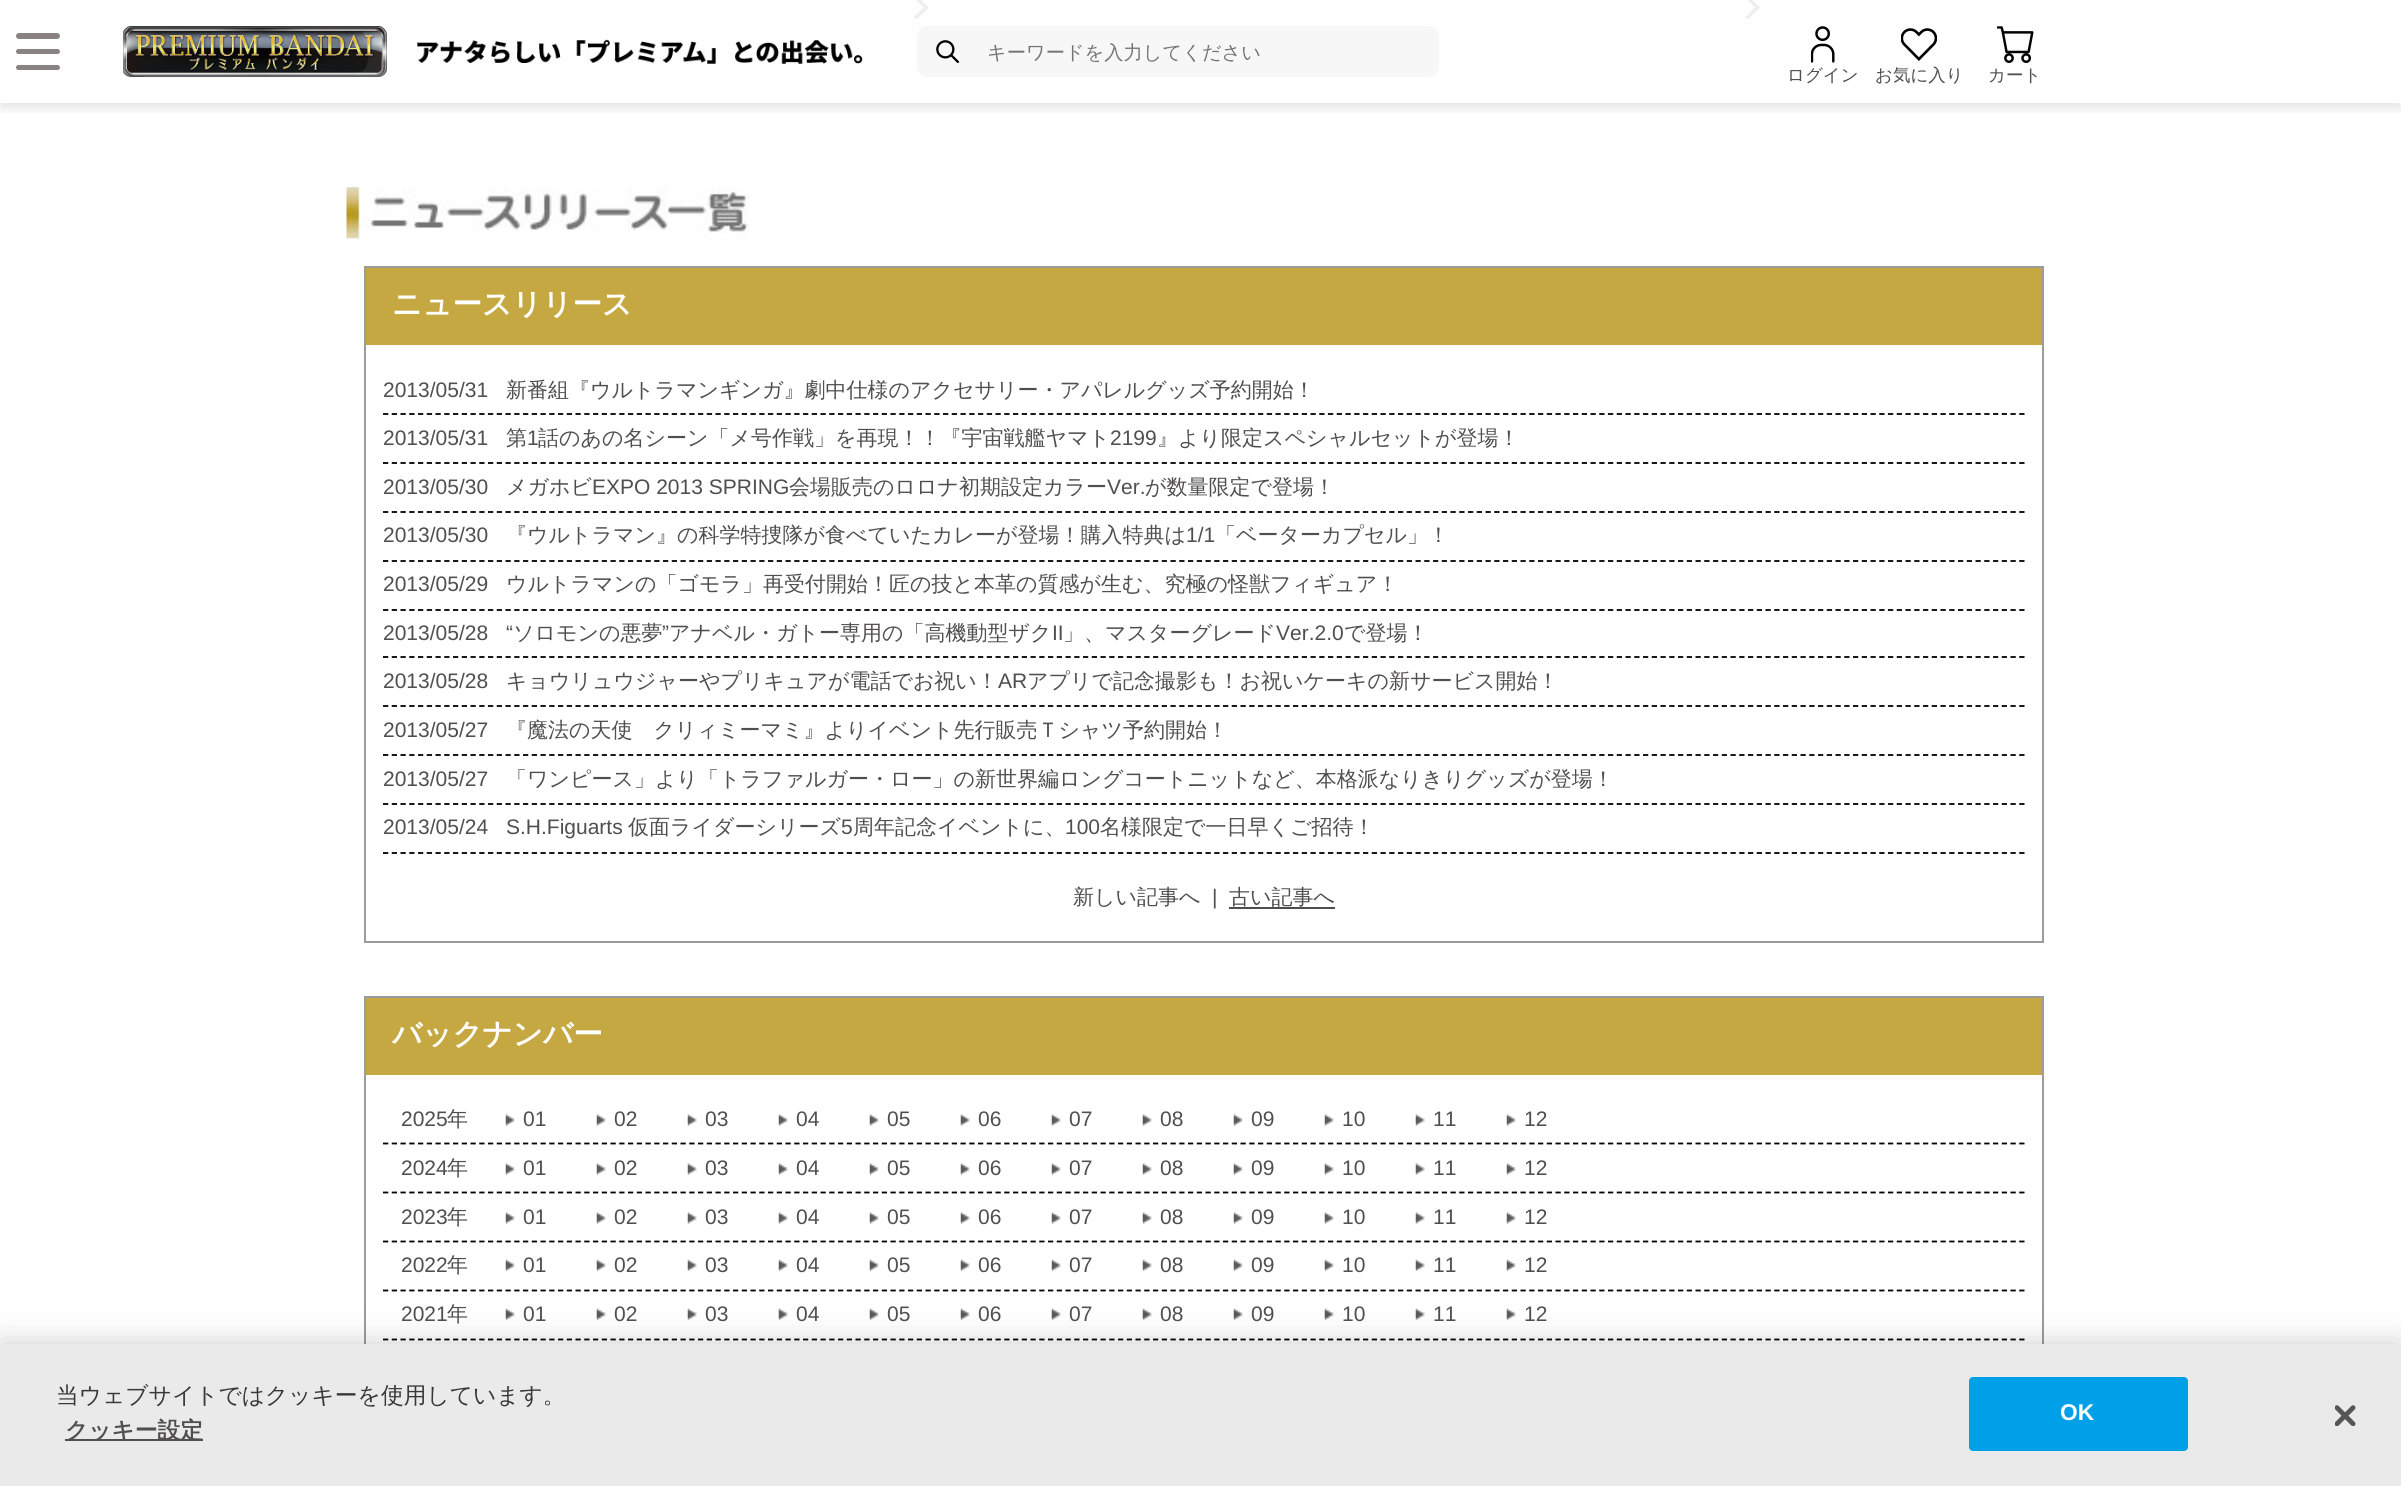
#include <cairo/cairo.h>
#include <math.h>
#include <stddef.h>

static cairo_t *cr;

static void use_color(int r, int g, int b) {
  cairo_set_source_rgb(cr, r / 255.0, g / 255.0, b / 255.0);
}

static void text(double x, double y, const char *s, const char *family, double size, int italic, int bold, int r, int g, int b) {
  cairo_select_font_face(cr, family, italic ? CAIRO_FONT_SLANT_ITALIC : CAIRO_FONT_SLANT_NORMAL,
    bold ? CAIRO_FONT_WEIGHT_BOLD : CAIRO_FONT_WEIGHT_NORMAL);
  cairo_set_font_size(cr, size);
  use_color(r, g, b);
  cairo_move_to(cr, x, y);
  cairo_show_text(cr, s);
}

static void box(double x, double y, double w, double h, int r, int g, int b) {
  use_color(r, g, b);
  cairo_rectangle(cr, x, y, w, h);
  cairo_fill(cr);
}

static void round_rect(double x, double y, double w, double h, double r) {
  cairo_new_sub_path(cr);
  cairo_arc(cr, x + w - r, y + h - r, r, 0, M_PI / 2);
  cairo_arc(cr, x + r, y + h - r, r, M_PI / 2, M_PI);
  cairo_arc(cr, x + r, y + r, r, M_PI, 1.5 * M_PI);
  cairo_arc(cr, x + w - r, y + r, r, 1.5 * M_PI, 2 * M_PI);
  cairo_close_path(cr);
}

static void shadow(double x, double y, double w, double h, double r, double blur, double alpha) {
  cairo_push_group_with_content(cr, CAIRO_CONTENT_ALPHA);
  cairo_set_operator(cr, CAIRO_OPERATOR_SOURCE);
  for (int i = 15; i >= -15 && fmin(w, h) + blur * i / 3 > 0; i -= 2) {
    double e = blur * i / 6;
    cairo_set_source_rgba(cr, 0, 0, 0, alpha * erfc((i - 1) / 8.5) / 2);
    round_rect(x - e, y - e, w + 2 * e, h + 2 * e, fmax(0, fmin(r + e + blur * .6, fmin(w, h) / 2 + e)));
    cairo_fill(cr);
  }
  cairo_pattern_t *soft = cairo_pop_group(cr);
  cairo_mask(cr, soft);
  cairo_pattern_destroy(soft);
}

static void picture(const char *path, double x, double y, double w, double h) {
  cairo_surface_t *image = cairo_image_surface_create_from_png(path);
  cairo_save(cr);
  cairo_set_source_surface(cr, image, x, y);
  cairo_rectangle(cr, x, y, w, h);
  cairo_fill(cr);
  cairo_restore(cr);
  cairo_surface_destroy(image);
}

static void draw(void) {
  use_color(255, 255, 255);
  cairo_paint(cr);
  box(0, 0, 2401, 75, 241, 241, 241);
  use_color(83, 83, 83);
  cairo_new_path(cr);
  cairo_move_to(cr, 914, -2);
  cairo_line_to(cr, 916.5, -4.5);
  cairo_line_to(cr, 928.5, 7.5);
  cairo_line_to(cr, 926, 9.5);
  cairo_close_path(cr);
  cairo_fill(cr);
  cairo_new_path(cr);
  cairo_move_to(cr, 914, 17);
  cairo_line_to(cr, 926, 5);
  cairo_line_to(cr, 928.5, 7.5);
  cairo_line_to(cr, 916.5, 19.5);
  cairo_close_path(cr);
  cairo_fill(cr);
  cairo_new_path(cr);
  cairo_move_to(cr, 1745.5, -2);
  cairo_line_to(cr, 1748, -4.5);
  cairo_line_to(cr, 1760, 7.5);
  cairo_line_to(cr, 1757.5, 9.5);
  cairo_close_path(cr);
  cairo_fill(cr);
  cairo_new_path(cr);
  cairo_move_to(cr, 1745.5, 17);
  cairo_line_to(cr, 1757.5, 5);
  cairo_line_to(cr, 1760, 7.5);
  cairo_line_to(cr, 1748, 19.5);
  cairo_close_path(cr);
  cairo_fill(cr);
  cairo_save(cr);
  cairo_rectangle(cr, 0, 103, 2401, 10);
  cairo_clip(cr);
  use_color(0, 0, 0);
  shadow(0, 5, 2401, 104, 0, 5, 0.1);
  cairo_restore(cr);
  cairo_set_source_rgba(cr, 1, 1, 1, 0.9);
  cairo_rectangle(cr, 0, 0, 2401, 75);
  cairo_fill(cr);
  use_color(137, 130, 130);
  round_rect(16, 33, 44, 6, 3);
  cairo_fill(cr);
  round_rect(16, 49, 44, 5, 2.5);
  cairo_fill(cr);
  round_rect(16, 65, 44, 5, 2.5);
  cairo_fill(cr);
  picture("img_01.png", 123, 26, 740, 51);
  use_color(247, 247, 247);
  round_rect(917, 26, 522, 51, 11);
  cairo_fill(cr);
  picture("img_02.png", 936, 40, 23, 23);
  picture("img_03.png", 1811, 26, 24, 37);
  picture("img_04.png", 1901, 28, 36, 33);
  picture("img_05.png", 1997, 26, 37, 37);
  picture("img_06.png", 346, 187, 403, 53);
  cairo_rectangle(cr, 365, 267, 1678, 675);
  use_color(155, 155, 155);
  cairo_stroke(cr);
  box(366, 268, 1676, 77, 197, 168, 65);
  cairo_new_path(cr);
  cairo_move_to(cr, 383, 414);
  cairo_line_to(cr, 2025, 414);
  use_color(0, 0, 0);
  cairo_set_line_width(cr, 1.8);
  cairo_set_dash(cr, (double[]){5.25, 3.5}, 2, 0);
  cairo_stroke(cr);
  cairo_new_path(cr);
  cairo_move_to(cr, 383, 463);
  cairo_line_to(cr, 2025, 463);
  cairo_stroke(cr);
  cairo_new_path(cr);
  cairo_move_to(cr, 383, 512);
  cairo_line_to(cr, 2025, 512);
  cairo_stroke(cr);
  cairo_new_path(cr);
  cairo_move_to(cr, 383, 561);
  cairo_line_to(cr, 2025, 561);
  cairo_stroke(cr);
  cairo_new_path(cr);
  cairo_move_to(cr, 383, 610);
  cairo_line_to(cr, 2025, 610);
  cairo_stroke(cr);
  cairo_new_path(cr);
  cairo_move_to(cr, 383, 657);
  cairo_line_to(cr, 2025, 657);
  cairo_stroke(cr);
  cairo_new_path(cr);
  cairo_move_to(cr, 383, 706);
  cairo_line_to(cr, 2025, 706);
  cairo_stroke(cr);
  cairo_new_path(cr);
  cairo_move_to(cr, 383, 755);
  cairo_line_to(cr, 2025, 755);
  cairo_stroke(cr);
  cairo_new_path(cr);
  cairo_move_to(cr, 383, 804);
  cairo_line_to(cr, 2025, 804);
  cairo_stroke(cr);
  cairo_new_path(cr);
  cairo_move_to(cr, 383, 853);
  cairo_line_to(cr, 2025, 853);
  cairo_stroke(cr);
  box(1229, 907, 106, 2, 77, 77, 77);
  cairo_rectangle(cr, 365, 997, 1678, 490);
  use_color(155, 155, 155);
  cairo_set_line_width(cr, 2);
  cairo_set_dash(cr, NULL, 0, 0);
  cairo_stroke(cr);
  box(366, 998, 1676, 77, 197, 168, 65);
  cairo_new_path(cr);
  cairo_move_to(cr, 383, 1143.5);
  cairo_line_to(cr, 2025, 1143.5);
  use_color(0, 0, 0);
  cairo_set_line_width(cr, 1.8);
  cairo_set_dash(cr, (double[]){5.25, 3.5}, 2, 0);
  cairo_stroke(cr);
  picture("img_07.png", 505, 1114, 10, 12);
  picture("img_07.png", 596, 1114, 10, 12);
  picture("img_07.png", 687, 1114, 10, 12);
  picture("img_08.png", 778, 1114, 10, 12);
  picture("img_07.png", 869, 1114, 10, 12);
  picture("img_07.png", 960, 1114, 10, 12);
  picture("img_07.png", 1051, 1114, 10, 12);
  picture("img_07.png", 1142, 1114, 10, 12);
  picture("img_07.png", 1233, 1114, 10, 12);
  picture("img_07.png", 1324, 1114, 10, 12);
  picture("img_08.png", 1415, 1114, 10, 12);
  picture("img_07.png", 1506, 1114, 10, 12);
  cairo_new_path(cr);
  cairo_move_to(cr, 383, 1192.5);
  cairo_line_to(cr, 2025, 1192.5);
  cairo_stroke(cr);
  picture("img_07.png", 505, 1163, 10, 12);
  picture("img_07.png", 596, 1163, 10, 12);
  picture("img_07.png", 687, 1163, 10, 12);
  picture("img_08.png", 778, 1163, 10, 12);
  picture("img_07.png", 869, 1163, 10, 12);
  picture("img_07.png", 960, 1163, 10, 12);
  picture("img_07.png", 1051, 1163, 10, 12);
  picture("img_07.png", 1142, 1163, 10, 12);
  picture("img_07.png", 1233, 1163, 10, 12);
  picture("img_07.png", 1324, 1163, 10, 12);
  picture("img_08.png", 1415, 1163, 10, 12);
  picture("img_07.png", 1506, 1163, 10, 12);
  cairo_new_path(cr);
  cairo_move_to(cr, 383, 1241.5);
  cairo_line_to(cr, 2025, 1241.5);
  cairo_stroke(cr);
  picture("img_07.png", 505, 1212, 10, 12);
  picture("img_07.png", 596, 1212, 10, 12);
  picture("img_07.png", 687, 1212, 10, 12);
  picture("img_08.png", 778, 1212, 10, 12);
  picture("img_07.png", 869, 1212, 10, 12);
  picture("img_07.png", 960, 1212, 10, 12);
  picture("img_07.png", 1051, 1212, 10, 12);
  picture("img_07.png", 1142, 1212, 10, 12);
  picture("img_07.png", 1233, 1212, 10, 12);
  picture("img_07.png", 1324, 1212, 10, 12);
  picture("img_08.png", 1415, 1212, 10, 12);
  picture("img_07.png", 1506, 1212, 10, 12);
  cairo_new_path(cr);
  cairo_move_to(cr, 383, 1290.5);
  cairo_line_to(cr, 2025, 1290.5);
  cairo_stroke(cr);
  picture("img_09.png", 505, 1259, 10, 12);
  picture("img_09.png", 596, 1259, 10, 12);
  picture("img_09.png", 687, 1259, 10, 12);
  picture("img_10.png", 778, 1259, 10, 12);
  picture("img_09.png", 869, 1259, 10, 12);
  picture("img_09.png", 960, 1259, 10, 12);
  picture("img_09.png", 1051, 1259, 10, 12);
  picture("img_09.png", 1142, 1259, 10, 12);
  picture("img_09.png", 1233, 1259, 10, 12);
  picture("img_09.png", 1324, 1259, 10, 12);
  picture("img_10.png", 1415, 1259, 10, 12);
  picture("img_09.png", 1506, 1259, 10, 12);
  cairo_new_path(cr);
  cairo_move_to(cr, 383, 1339.5);
  cairo_line_to(cr, 2025, 1339.5);
  cairo_stroke(cr);
  picture("img_09.png", 505, 1308, 10, 12);
  picture("img_09.png", 596, 1308, 10, 12);
  picture("img_09.png", 687, 1308, 10, 12);
  picture("img_10.png", 778, 1308, 10, 12);
  picture("img_09.png", 869, 1308, 10, 12);
  picture("img_09.png", 960, 1308, 10, 12);
  picture("img_09.png", 1051, 1308, 10, 12);
  picture("img_09.png", 1142, 1308, 10, 12);
  picture("img_09.png", 1233, 1308, 10, 12);
  picture("img_09.png", 1324, 1308, 10, 12);
  picture("img_10.png", 1415, 1308, 10, 12);
  picture("img_09.png", 1506, 1308, 10, 12);
  use_color(0, 0, 0);
  shadow(0, 1344, 2401, 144, 0, 16, 0.2);
  box(0, 1344, 2401, 142, 234, 234, 234);
  box(65, 1439, 138, 2, 80, 78, 78);
  use_color(0, 160, 233);
  round_rect(1970, 1378, 217, 72, 3);
  cairo_fill_preserve(cr);
  cairo_set_line_width(cr, 2);
  cairo_set_dash(cr, NULL, 0, 0);
  cairo_stroke(cr);
  picture("img_11.png", 2335, 1405, 21, 21);
  text(987, 59, "キーワードを入力してください", "WenQuanYi Zen Hei Medium", 19.25, 0, 0, 117, 117, 117);
  text(1787, 81, "ログイン", "WenQuanYi Zen Hei Medium", 17.5, 0, 0, 80, 78, 78);
  text(1875, 81, "お気に入り", "WenQuanYi Zen Hei Medium", 17.5, 0, 0, 80, 78, 78);
  text(1988, 81, "カート", "WenQuanYi Zen Hei Medium", 17.5, 0, 0, 80, 78, 78);
  text(392, 314, "ニュースリリース", "WenQuanYi Zen Hei", 29.5, 0, 1, 255, 255, 255);
  text(383, 397, "2013/05/31", "Liberation Sans", 21, 0, 0, 80, 78, 78);
  text(506, 397, "新番組『ウルトラマンギンガ』劇中仕様のアクセサリー・アパレルグッズ予約開始！", "WenQuanYi Zen Hei Medium", 21, 0, 0, 80, 78, 78);
  text(383, 445, "2013/05/31", "Liberation Sans", 21, 0, 0, 80, 78, 78);
  text(506, 445, "第", "WenQuanYi Zen Hei Medium", 21, 0, 0, 80, 78, 78);
  text(527, 445, "1", "Liberation Sans", 21, 0, 0, 80, 78, 78);
  text(538, 445, "話のあの名シーン「メ号作戦」を再現！！『宇宙戦艦ヤマト", "WenQuanYi Zen Hei Medium", 21, 0, 0, 80, 78, 78);
  text(1110, 445, "2199", "Liberation Sans", 21, 0, 0, 80, 78, 78);
  text(1157, 445, "』より限定スペシャルセットが登場！", "WenQuanYi Zen Hei Medium", 21, 0, 0, 80, 78, 78);
  text(383, 494, "2013/05/30", "Liberation Sans", 21, 0, 0, 80, 78, 78);
  text(506, 494, "メガホビ", "WenQuanYi Zen Hei Medium", 21, 0, 0, 80, 78, 78);
  text(592, 494, "EXPO 2013 SPRING", "Liberation Sans", 21, 0, 0, 80, 78, 78);
  text(789, 494, "会場販売のロロナ初期設定カラー", "WenQuanYi Zen Hei Medium", 21, 0, 0, 80, 78, 78);
  text(1107, 494, "Ver.", "Liberation Sans", 21, 0, 0, 80, 78, 78);
  text(1145, 494, "が数量限定で登場！", "WenQuanYi Zen Hei Medium", 21, 0, 0, 80, 78, 78);
  text(383, 542, "2013/05/30", "Liberation Sans", 21, 0, 0, 80, 78, 78);
  text(506, 542, "『ウルトラマン』の科学特捜隊が食べていたカレーが登場！購入特典は", "WenQuanYi Zen Hei Medium", 21, 0, 0, 80, 78, 78);
  text(1186, 542, "1/1", "Liberation Sans", 21, 0, 0, 80, 78, 78);
  text(1215, 542, "「ベーターカプセル」！", "WenQuanYi Zen Hei Medium", 21, 0, 0, 80, 78, 78);
  text(383, 591, "2013/05/29", "Liberation Sans", 21, 0, 0, 80, 78, 78);
  text(506, 591, "ウルトラマンの「ゴモラ」再受付開始！匠の技と本革の質感が生む、究極の怪獣フィギュア！", "WenQuanYi Zen Hei Medium", 21, 0, 0, 80, 78, 78);
  text(383, 640, "2013/05/28", "Liberation Sans", 21, 0, 0, 80, 78, 78);
  text(506, 640, "“", "Liberation Sans", 21, 0, 0, 80, 78, 78);
  text(513, 640, "ソロモンの悪夢", "WenQuanYi Zen Hei Medium", 21, 0, 0, 80, 78, 78);
  text(662, 640, "”", "Liberation Sans", 21, 0, 0, 80, 78, 78);
  text(669, 640, "アナベル・ガトー専用の「高機動型ザク", "WenQuanYi Zen Hei Medium", 21, 0, 0, 80, 78, 78);
  text(1052, 640, "II", "Liberation Sans", 21, 0, 0, 80, 78, 78);
  text(1063, 640, "」、マスターグレード", "WenQuanYi Zen Hei Medium", 21, 0, 0, 80, 78, 78);
  text(1276, 640, "Ver.2.0", "Liberation Sans", 21, 0, 0, 80, 78, 78);
  text(1344, 640, "で登場！", "WenQuanYi Zen Hei Medium", 21, 0, 0, 80, 78, 78);
  text(383, 688, "2013/05/28", "Liberation Sans", 21, 0, 0, 80, 78, 78);
  text(506, 688, "キョウリュウジャーやプリキュアが電話でお祝い！", "WenQuanYi Zen Hei Medium", 21, 0, 0, 80, 78, 78);
  text(998, 688, "AR", "Liberation Sans", 21, 0, 0, 80, 78, 78);
  text(1027, 688, "アプリで記念撮影も！お祝いケーキの新サービス開始！", "WenQuanYi Zen Hei Medium", 21, 0, 0, 80, 78, 78);
  text(383, 737, "2013/05/27", "Liberation Sans", 21, 0, 0, 80, 78, 78);
  text(506, 737, "『魔法の天使　クリィミーマミ』よりイベント先行販売Ｔシャツ予約開始！", "WenQuanYi Zen Hei Medium", 21, 0, 0, 80, 78, 78);
  text(383, 786, "2013/05/27", "Liberation Sans", 21, 0, 0, 80, 78, 78);
  text(506, 786, "「ワンピース」より「トラファルガー・ロー」の新世界編ロングコートニットなど、本格派なりきりグッズが登場！", "WenQuanYi Zen Hei Medium", 21, 0, 0, 80, 78, 78);
  text(383, 834, "2013/05/24", "Liberation Sans", 21, 0, 0, 80, 78, 78);
  text(506, 834, "S.H.Figuarts", "Liberation Sans", 21, 0, 0, 80, 78, 78);
  text(628, 834, "仮面ライダーシリーズ", "WenQuanYi Zen Hei Medium", 21, 0, 0, 80, 78, 78);
  text(841, 834, "5", "Liberation Sans", 21, 0, 0, 80, 78, 78);
  text(853, 834, "周年記念イベントに、", "WenQuanYi Zen Hei Medium", 21, 0, 0, 80, 78, 78);
  text(1065, 834, "100", "Liberation Sans", 21, 0, 0, 80, 78, 78);
  text(1100, 834, "名様限定で一日早くご招待！", "WenQuanYi Zen Hei Medium", 21, 0, 0, 80, 78, 78);
  text(1073, 904, "新しい記事へ", "WenQuanYi Zen Hei Medium", 21, 0, 0, 80, 78, 78);
  text(1212, 904, "|", "Liberation Sans", 21, 0, 0, 80, 78, 78);
  text(1229, 904, "古い記事へ", "WenQuanYi Zen Hei Medium", 21, 0, 0, 80, 78, 78);
  text(392, 1044, "バックナンバー", "WenQuanYi Zen Hei", 29.5, 0, 1, 255, 255, 255);
  text(401, 1126, "2025", "Liberation Sans", 21, 0, 0, 80, 78, 78);
  text(447, 1126, "年", "WenQuanYi Zen Hei Medium", 21, 0, 0, 80, 78, 78);
  text(523, 1126, "01", "Liberation Sans", 21, 0, 0, 80, 78, 78);
  text(614, 1126, "02", "Liberation Sans", 21, 0, 0, 80, 78, 78);
  text(705, 1126, "03", "Liberation Sans", 21, 0, 0, 80, 78, 78);
  text(796, 1126, "04", "Liberation Sans", 21, 0, 0, 80, 78, 78);
  text(887, 1126, "05", "Liberation Sans", 21, 0, 0, 80, 78, 78);
  text(978, 1126, "06", "Liberation Sans", 21, 0, 0, 80, 78, 78);
  text(1069, 1126, "07", "Liberation Sans", 21, 0, 0, 80, 78, 78);
  text(1160, 1126, "08", "Liberation Sans", 21, 0, 0, 80, 78, 78);
  text(1251, 1126, "09", "Liberation Sans", 21, 0, 0, 80, 78, 78);
  text(1342, 1126, "10", "Liberation Sans", 21, 0, 0, 80, 78, 78);
  text(1433, 1126, "11", "Liberation Sans", 21, 0, 0, 80, 78, 78);
  text(1524, 1126, "12", "Liberation Sans", 21, 0, 0, 80, 78, 78);
  text(401, 1175, "2024", "Liberation Sans", 21, 0, 0, 80, 78, 78);
  text(447, 1175, "年", "WenQuanYi Zen Hei Medium", 21, 0, 0, 80, 78, 78);
  text(523, 1175, "01", "Liberation Sans", 21, 0, 0, 80, 78, 78);
  text(614, 1175, "02", "Liberation Sans", 21, 0, 0, 80, 78, 78);
  text(705, 1175, "03", "Liberation Sans", 21, 0, 0, 80, 78, 78);
  text(796, 1175, "04", "Liberation Sans", 21, 0, 0, 80, 78, 78);
  text(887, 1175, "05", "Liberation Sans", 21, 0, 0, 80, 78, 78);
  text(978, 1175, "06", "Liberation Sans", 21, 0, 0, 80, 78, 78);
  text(1069, 1175, "07", "Liberation Sans", 21, 0, 0, 80, 78, 78);
  text(1160, 1175, "08", "Liberation Sans", 21, 0, 0, 80, 78, 78);
  text(1251, 1175, "09", "Liberation Sans", 21, 0, 0, 80, 78, 78);
  text(1342, 1175, "10", "Liberation Sans", 21, 0, 0, 80, 78, 78);
  text(1433, 1175, "11", "Liberation Sans", 21, 0, 0, 80, 78, 78);
  text(1524, 1175, "12", "Liberation Sans", 21, 0, 0, 80, 78, 78);
  text(401, 1224, "2023", "Liberation Sans", 21, 0, 0, 80, 78, 78);
  text(447, 1224, "年", "WenQuanYi Zen Hei Medium", 21, 0, 0, 80, 78, 78);
  text(523, 1224, "01", "Liberation Sans", 21, 0, 0, 80, 78, 78);
  text(614, 1224, "02", "Liberation Sans", 21, 0, 0, 80, 78, 78);
  text(705, 1224, "03", "Liberation Sans", 21, 0, 0, 80, 78, 78);
  text(796, 1224, "04", "Liberation Sans", 21, 0, 0, 80, 78, 78);
  text(887, 1224, "05", "Liberation Sans", 21, 0, 0, 80, 78, 78);
  text(978, 1224, "06", "Liberation Sans", 21, 0, 0, 80, 78, 78);
  text(1069, 1224, "07", "Liberation Sans", 21, 0, 0, 80, 78, 78);
  text(1160, 1224, "08", "Liberation Sans", 21, 0, 0, 80, 78, 78);
  text(1251, 1224, "09", "Liberation Sans", 21, 0, 0, 80, 78, 78);
  text(1342, 1224, "10", "Liberation Sans", 21, 0, 0, 80, 78, 78);
  text(1433, 1224, "11", "Liberation Sans", 21, 0, 0, 80, 78, 78);
  text(1524, 1224, "12", "Liberation Sans", 21, 0, 0, 80, 78, 78);
  text(401, 1272, "2022", "Liberation Sans", 21, 0, 0, 80, 78, 78);
  text(447, 1272, "年", "WenQuanYi Zen Hei Medium", 21, 0, 0, 80, 78, 78);
  text(523, 1272, "01", "Liberation Sans", 21, 0, 0, 80, 78, 78);
  text(614, 1272, "02", "Liberation Sans", 21, 0, 0, 80, 78, 78);
  text(705, 1272, "03", "Liberation Sans", 21, 0, 0, 80, 78, 78);
  text(796, 1272, "04", "Liberation Sans", 21, 0, 0, 80, 78, 78);
  text(887, 1272, "05", "Liberation Sans", 21, 0, 0, 80, 78, 78);
  text(978, 1272, "06", "Liberation Sans", 21, 0, 0, 80, 78, 78);
  text(1069, 1272, "07", "Liberation Sans", 21, 0, 0, 80, 78, 78);
  text(1160, 1272, "08", "Liberation Sans", 21, 0, 0, 80, 78, 78);
  text(1251, 1272, "09", "Liberation Sans", 21, 0, 0, 80, 78, 78);
  text(1342, 1272, "10", "Liberation Sans", 21, 0, 0, 80, 78, 78);
  text(1433, 1272, "11", "Liberation Sans", 21, 0, 0, 80, 78, 78);
  text(1524, 1272, "12", "Liberation Sans", 21, 0, 0, 80, 78, 78);
  text(401, 1321, "2021", "Liberation Sans", 21, 0, 0, 80, 78, 78);
  text(447, 1321, "年", "WenQuanYi Zen Hei Medium", 21, 0, 0, 80, 78, 78);
  text(523, 1321, "01", "Liberation Sans", 21, 0, 0, 80, 78, 78);
  text(614, 1321, "02", "Liberation Sans", 21, 0, 0, 80, 78, 78);
  text(705, 1321, "03", "Liberation Sans", 21, 0, 0, 80, 78, 78);
  text(796, 1321, "04", "Liberation Sans", 21, 0, 0, 80, 78, 78);
  text(887, 1321, "05", "Liberation Sans", 21, 0, 0, 80, 78, 78);
  text(978, 1321, "06", "Liberation Sans", 21, 0, 0, 80, 78, 78);
  text(1069, 1321, "07", "Liberation Sans", 21, 0, 0, 80, 78, 78);
  text(1160, 1321, "08", "Liberation Sans", 21, 0, 0, 80, 78, 78);
  text(1251, 1321, "09", "Liberation Sans", 21, 0, 0, 80, 78, 78);
  text(1342, 1321, "10", "Liberation Sans", 21, 0, 0, 80, 78, 78);
  text(1433, 1321, "11", "Liberation Sans", 21, 0, 0, 80, 78, 78);
  text(1524, 1321, "12", "Liberation Sans", 21, 0, 0, 80, 78, 78);
  text(56, 1403, "当ウェブサイトではクッキーを使用しています。", "WenQuanYi Zen Hei Medium", 22.75, 0, 0, 56, 56, 56);
  text(65, 1438, "クッキー設定", "WenQuanYi Zen Hei", 22.75, 0, 1, 80, 78, 78);
  text(2060, 1420, "OK", "Liberation Sans", 22.75, 0, 1, 255, 255, 255);
}

int main(void) {
  cairo_surface_t *surface = cairo_image_surface_create(CAIRO_FORMAT_RGB24, 2401, 1486);
  cr = cairo_create(surface);
  cairo_font_options_t *options = cairo_font_options_create();
  cairo_font_options_set_hint_metrics(options, CAIRO_HINT_METRICS_OFF);
  cairo_font_options_set_hint_style(options, CAIRO_HINT_STYLE_NONE);
  cairo_set_font_options(cr, options);
  cairo_set_miter_limit(cr, 4);
  draw();
  cairo_surface_write_to_png(surface, "out.png");
  cairo_font_options_destroy(options);
  cairo_destroy(cr);
  cairo_surface_destroy(surface);
  return 0;
}
